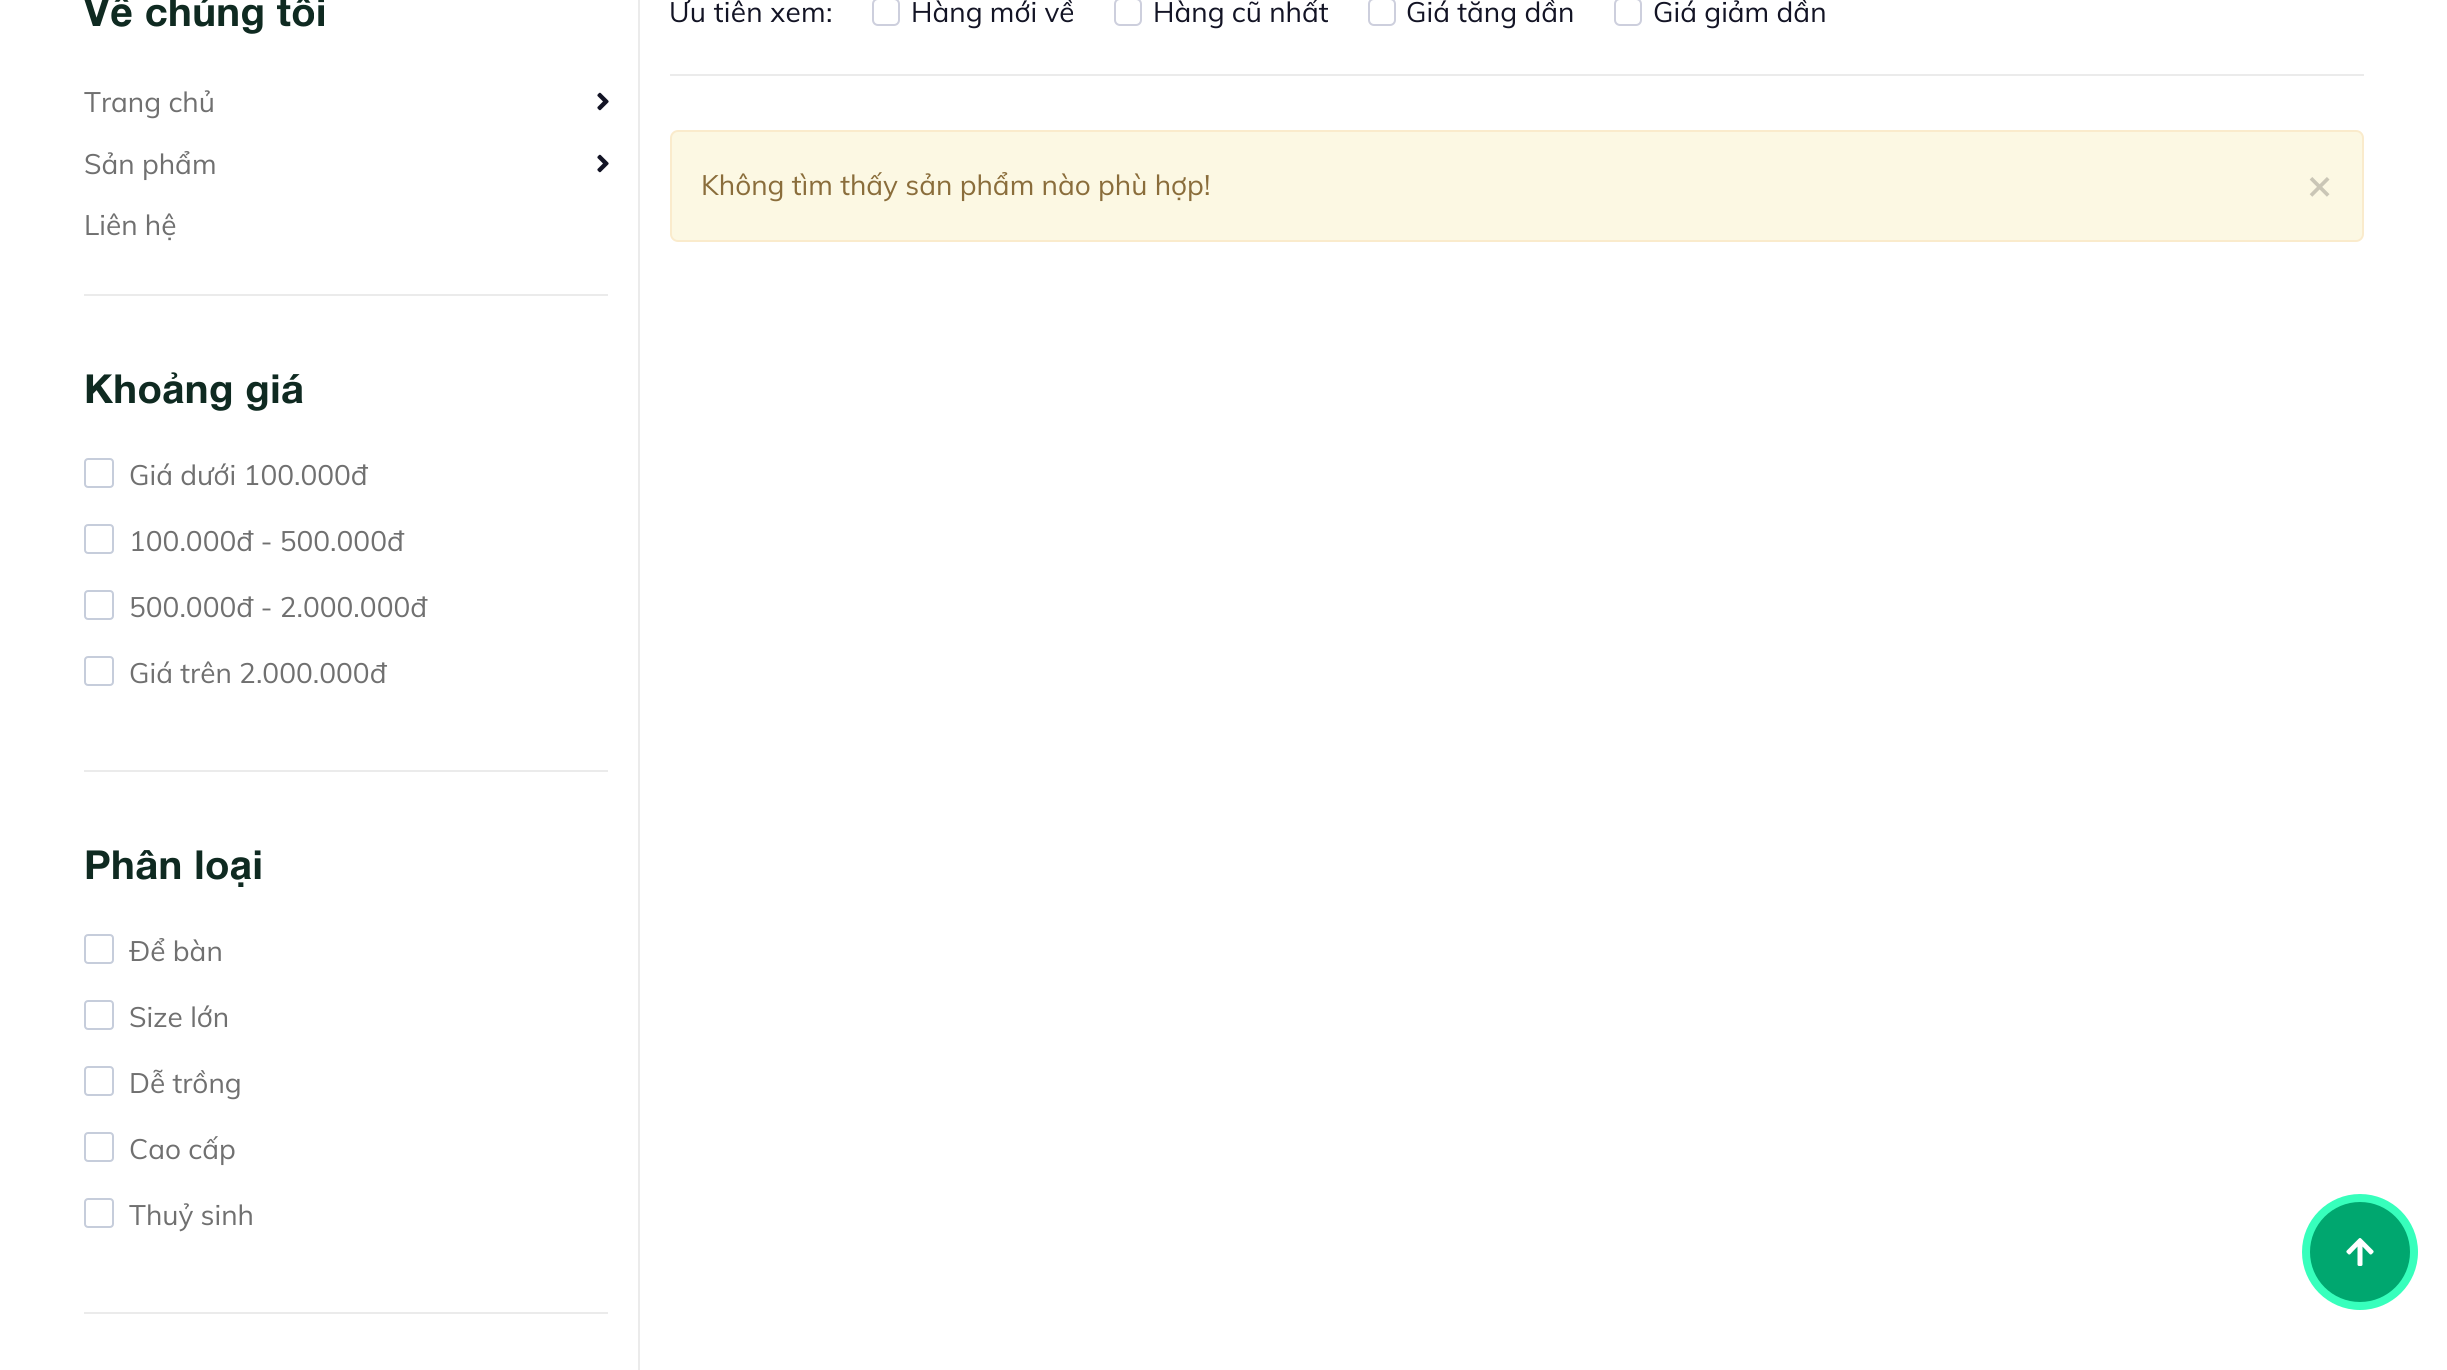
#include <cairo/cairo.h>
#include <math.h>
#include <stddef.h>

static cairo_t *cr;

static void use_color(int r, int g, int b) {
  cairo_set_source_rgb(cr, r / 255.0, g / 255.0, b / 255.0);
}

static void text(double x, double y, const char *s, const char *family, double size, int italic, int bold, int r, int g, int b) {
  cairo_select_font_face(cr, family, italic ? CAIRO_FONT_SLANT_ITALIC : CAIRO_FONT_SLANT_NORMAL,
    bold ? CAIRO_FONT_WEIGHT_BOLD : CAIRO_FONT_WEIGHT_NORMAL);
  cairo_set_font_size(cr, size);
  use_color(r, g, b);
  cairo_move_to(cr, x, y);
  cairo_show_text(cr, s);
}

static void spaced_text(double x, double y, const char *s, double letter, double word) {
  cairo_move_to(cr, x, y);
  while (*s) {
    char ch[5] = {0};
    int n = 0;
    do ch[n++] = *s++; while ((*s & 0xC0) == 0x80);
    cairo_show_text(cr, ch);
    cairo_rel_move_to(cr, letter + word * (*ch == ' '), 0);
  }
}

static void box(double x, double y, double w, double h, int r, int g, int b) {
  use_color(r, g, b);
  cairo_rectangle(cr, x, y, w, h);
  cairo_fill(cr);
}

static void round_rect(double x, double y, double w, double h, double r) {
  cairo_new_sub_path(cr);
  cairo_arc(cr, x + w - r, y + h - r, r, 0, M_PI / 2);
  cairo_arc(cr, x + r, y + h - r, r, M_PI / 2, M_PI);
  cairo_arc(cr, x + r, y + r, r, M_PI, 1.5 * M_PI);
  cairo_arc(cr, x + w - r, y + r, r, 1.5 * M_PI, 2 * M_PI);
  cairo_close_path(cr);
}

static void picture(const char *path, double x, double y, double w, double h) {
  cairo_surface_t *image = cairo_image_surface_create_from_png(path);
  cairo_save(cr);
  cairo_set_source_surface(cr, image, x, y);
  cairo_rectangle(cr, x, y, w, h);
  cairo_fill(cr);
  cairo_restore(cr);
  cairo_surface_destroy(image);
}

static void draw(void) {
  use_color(255, 255, 255);
  cairo_paint(cr);
  box(638, 0, 2, 1370, 235, 235, 235);
  box(84, 294, 524, 2, 235, 235, 235);
  picture("img_01.png", 597, 92, 12, 19);
  picture("img_01.png", 597, 154, 12, 19);
  box(84, 770, 524, 2, 235, 235, 235);
  round_rect(85, 459, 28, 28, 3);
  use_color(198, 205, 219);
  cairo_stroke(cr);
  round_rect(85, 525, 28, 28, 3);
  cairo_stroke(cr);
  round_rect(85, 591, 28, 28, 3);
  cairo_stroke(cr);
  round_rect(85, 657, 28, 28, 3);
  cairo_stroke(cr);
  box(84, 1312, 524, 2, 235, 235, 235);
  round_rect(85, 935, 28, 28, 3);
  use_color(198, 205, 219);
  cairo_stroke(cr);
  round_rect(85, 1001, 28, 28, 3);
  cairo_stroke(cr);
  round_rect(85, 1067, 28, 28, 3);
  cairo_stroke(cr);
  round_rect(85, 1133, 28, 28, 3);
  cairo_stroke(cr);
  round_rect(85, 1199, 28, 28, 3);
  cairo_stroke(cr);
  box(670, 74, 1694, 2, 235, 235, 235);
  round_rect(873, -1, 26, 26, 5);
  use_color(205, 207, 221);
  cairo_stroke(cr);
  round_rect(1115, -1, 26, 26, 5);
  cairo_stroke(cr);
  round_rect(1369, -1, 26, 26, 5);
  cairo_stroke(cr);
  round_rect(1615, -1, 26, 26, 5);
  cairo_stroke(cr);
  use_color(252, 248, 227);
  round_rect(671, 131, 1692, 110, 7);
  cairo_fill_preserve(cr);
  use_color(250, 235, 204);
  cairo_stroke(cr);
  use_color(55, 255, 188);
  cairo_arc(cr, 2360, 1252, 58, 0, 2 * M_PI);
  cairo_fill(cr);
  use_color(0, 167, 111);
  cairo_arc(cr, 2360, 1252, 50, 0, 2 * M_PI);
  cairo_fill(cr);
  picture("img_02.png", 2346, 1238, 28, 28);
  cairo_select_font_face(cr, "Helvetica Neue", CAIRO_FONT_SLANT_NORMAL, CAIRO_FONT_WEIGHT_BOLD);
  cairo_set_font_size(cr, 40);
  use_color(15, 42, 33);
  spaced_text(84, 26, "Về chúng tôi", 0.4, 0);
  text(84, 112, "Trang chủ", "Muli", 28, 0, 0, 112, 112, 112);
  text(84, 174, "Sản phẩm", "Muli", 28, 0, 0, 112, 112, 112);
  text(84, 235, "Liên hệ", "Muli", 28, 0, 0, 112, 112, 112);
  cairo_select_font_face(cr, "Helvetica Neue", CAIRO_FONT_SLANT_NORMAL, CAIRO_FONT_WEIGHT_BOLD);
  cairo_set_font_size(cr, 40);
  use_color(15, 42, 33);
  spaced_text(84, 403, "Khoảng giá", 0.4, 0);
  text(129, 485, "Giá dưới 100.000đ", "Muli", 28, 0, 0, 112, 112, 112);
  text(129, 551, "100.000đ - 500.000đ", "Muli", 28, 0, 0, 112, 112, 112);
  text(129, 617, "500.000đ - 2.000.000đ", "Muli", 28, 0, 0, 112, 112, 112);
  text(129, 683, "Giá trên 2.000.000đ", "Muli", 28, 0, 0, 112, 112, 112);
  cairo_select_font_face(cr, "Helvetica Neue", CAIRO_FONT_SLANT_NORMAL, CAIRO_FONT_WEIGHT_BOLD);
  cairo_set_font_size(cr, 40);
  use_color(15, 42, 33);
  spaced_text(84, 879, "Phân loại", 0.4, 0);
  text(129, 961, "Để bàn", "Muli", 28, 0, 0, 112, 112, 112);
  text(129, 1027, "Size lớn", "Muli", 28, 0, 0, 112, 112, 112);
  text(129, 1093, "Dễ trồng", "Muli", 28, 0, 0, 112, 112, 112);
  text(129, 1159, "Cao cấp", "Muli", 28, 0, 0, 112, 112, 112);
  text(129, 1225, "Thuỷ sinh", "Muli", 28, 0, 0, 112, 112, 112);
  use_color(19, 20, 37);
  spaced_text(669, 22, "Ưu tiên xem:", 0.25, 0);
  text(911, 22, "Hàng mới về", "Muli", 28, 0, 0, 19, 20, 37);
  text(1153, 22, "Hàng cũ nhất", "Muli", 28, 0, 0, 19, 20, 37);
  text(1406, 22, "Giá tăng dần", "Muli", 28, 0, 0, 19, 20, 37);
  text(1653, 22, "Giá giảm dần", "Muli", 28, 0, 0, 19, 20, 37);
  text(701, 195, "Không tìm thấy sản phẩm nào phù hợp!", "Muli", 28, 0, 0, 138, 109, 59);
  text(2307, 199, "×", "Muli", 42, 0, 1, 202, 198, 182);
}

int main(void) {
  cairo_surface_t *surface = cairo_image_surface_create(CAIRO_FORMAT_RGB24, 2447, 1370);
  cr = cairo_create(surface);
  cairo_font_options_t *options = cairo_font_options_create();
  cairo_font_options_set_hint_metrics(options, CAIRO_HINT_METRICS_OFF);
  cairo_font_options_set_hint_style(options, CAIRO_HINT_STYLE_NONE);
  cairo_set_font_options(cr, options);
  cairo_set_miter_limit(cr, 4);
  draw();
  cairo_surface_write_to_png(surface, "out.png");
  cairo_font_options_destroy(options);
  cairo_destroy(cr);
  cairo_surface_destroy(surface);
  return 0;
}
